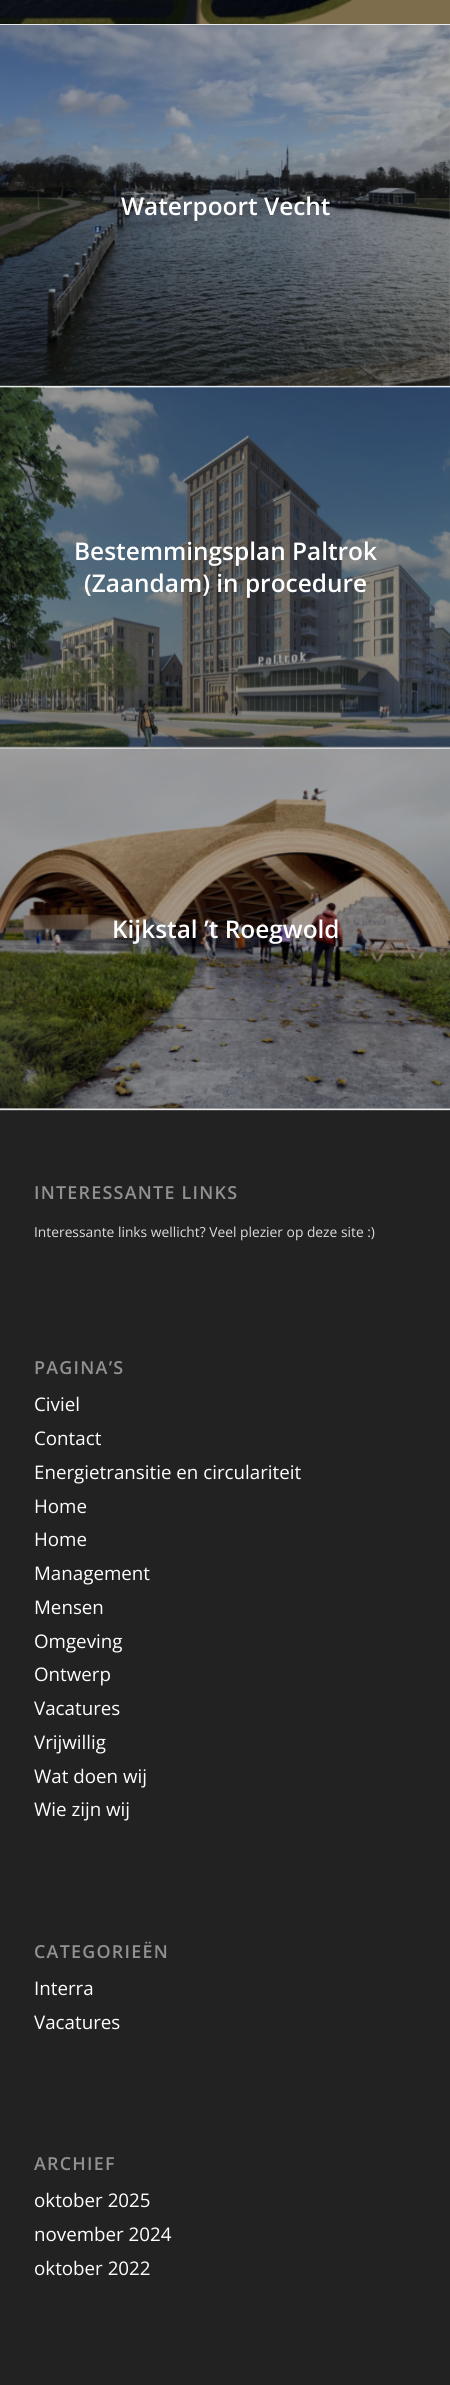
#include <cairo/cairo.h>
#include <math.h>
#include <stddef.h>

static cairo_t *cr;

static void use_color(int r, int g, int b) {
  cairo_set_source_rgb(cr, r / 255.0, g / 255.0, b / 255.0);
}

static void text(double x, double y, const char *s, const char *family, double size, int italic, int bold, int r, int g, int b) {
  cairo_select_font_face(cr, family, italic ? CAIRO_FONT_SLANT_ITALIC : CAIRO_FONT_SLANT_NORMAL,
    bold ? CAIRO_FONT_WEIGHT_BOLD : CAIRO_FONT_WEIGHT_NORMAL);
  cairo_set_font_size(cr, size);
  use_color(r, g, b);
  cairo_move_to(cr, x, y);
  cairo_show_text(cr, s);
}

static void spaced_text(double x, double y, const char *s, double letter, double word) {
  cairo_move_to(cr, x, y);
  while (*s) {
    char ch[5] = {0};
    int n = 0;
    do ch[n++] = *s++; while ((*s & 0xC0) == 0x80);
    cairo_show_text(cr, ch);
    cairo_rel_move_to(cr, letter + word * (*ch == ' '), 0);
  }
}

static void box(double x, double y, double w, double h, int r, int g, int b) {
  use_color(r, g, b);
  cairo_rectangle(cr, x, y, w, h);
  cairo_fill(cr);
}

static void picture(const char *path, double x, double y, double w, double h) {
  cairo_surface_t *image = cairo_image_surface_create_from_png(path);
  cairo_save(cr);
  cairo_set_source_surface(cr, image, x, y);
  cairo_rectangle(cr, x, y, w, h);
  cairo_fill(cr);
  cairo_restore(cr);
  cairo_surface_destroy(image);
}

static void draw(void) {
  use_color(235, 235, 235);
  cairo_paint(cr);
  picture("img_01.png", 0, 0, 450, 24);
  box(0, 25, 450, 361, 166, 166, 166);
  picture("img_02.png", 0, 25, 450, 361);
  box(0, 746, 450, 2, 166, 166, 166);
  picture("img_03.png", 0, 387, 450, 360);
  box(0, 1108, 450, 1, 166, 166, 166);
  picture("img_04.png", 0, 748, 450, 361);
  box(0, 1111, 450, 1274, 34, 34, 34);
  box(0, 1110, 450, 1, 68, 68, 68);
  text(121, 215, "Waterpoort Vecht", "Open Sans SemiBold", 24.4, 0, 0, 255, 255, 255);
  text(74, 560, "Bestemmingsplan Paltrok", "Open Sans SemiBold", 24.4, 0, 0, 255, 255, 255);
  text(84, 592, "(Zaandam) in procedure", "Open Sans SemiBold", 24.4, 0, 0, 255, 255, 255);
  text(112, 938, "Kijkstal ’t Roegwold", "Open Sans SemiBold", 24.4, 0, 0, 255, 255, 255);
  cairo_set_font_size(cr, 17.9);
  use_color(145, 145, 145);
  spaced_text(34, 1199, "INTERESSANTE LINKS", 1.25, 0);
  text(34, 1237, "Interessante links wellicht? Veel plezier op deze site :)", "Open Sans", 13.8, 0, 0, 221, 221, 221);
  cairo_select_font_face(cr, "Open Sans SemiBold", CAIRO_FONT_SLANT_NORMAL, CAIRO_FONT_WEIGHT_NORMAL);
  cairo_set_font_size(cr, 17.9);
  use_color(145, 145, 145);
  spaced_text(34, 1374, "PAGINA’S", 1.25, 0);
  text(34, 1411, "Civiel", "Open Sans", 18.75, 0, 0, 255, 255, 255);
  text(34, 1445, "Contact", "Open Sans", 18.75, 0, 0, 255, 255, 255);
  text(34, 1479, "Energietransitie en circulariteit", "Open Sans", 18.75, 0, 0, 255, 255, 255);
  text(34, 1513, "Home", "Open Sans", 18.75, 0, 0, 255, 255, 255);
  text(34, 1546, "Home", "Open Sans", 18.75, 0, 0, 255, 255, 255);
  text(34, 1580, "Management", "Open Sans", 18.75, 0, 0, 255, 255, 255);
  text(34, 1614, "Mensen", "Open Sans", 18.75, 0, 0, 255, 255, 255);
  text(34, 1648, "Omgeving", "Open Sans", 18.75, 0, 0, 255, 255, 255);
  text(34, 1681, "Ontwerp", "Open Sans", 18.75, 0, 0, 255, 255, 255);
  text(34, 1715, "Vacatures", "Open Sans", 18.75, 0, 0, 255, 255, 255);
  text(34, 1749, "Vrijwillig", "Open Sans", 18.75, 0, 0, 255, 255, 255);
  text(34, 1783, "Wat doen wij", "Open Sans", 18.75, 0, 0, 255, 255, 255);
  text(34, 1816, "Wie zijn wij", "Open Sans", 18.75, 0, 0, 255, 255, 255);
  cairo_select_font_face(cr, "Open Sans SemiBold", CAIRO_FONT_SLANT_NORMAL, CAIRO_FONT_WEIGHT_NORMAL);
  cairo_set_font_size(cr, 17.9);
  use_color(145, 145, 145);
  spaced_text(34, 1958, "CATEGORIEËN", 1.25, 0);
  text(34, 1995, "Interra", "Open Sans", 18.75, 0, 0, 255, 255, 255);
  text(34, 2029, "Vacatures", "Open Sans", 18.75, 0, 0, 255, 255, 255);
  cairo_select_font_face(cr, "Open Sans SemiBold", CAIRO_FONT_SLANT_NORMAL, CAIRO_FONT_WEIGHT_NORMAL);
  cairo_set_font_size(cr, 17.9);
  use_color(145, 145, 145);
  spaced_text(34, 2170, "ARCHIEF", 1.25, 0);
  text(34, 2207, "oktober 2025", "Open Sans", 18.75, 0, 0, 255, 255, 255);
  text(34, 2241, "november 2024", "Open Sans", 18.75, 0, 0, 255, 255, 255);
  text(34, 2275, "oktober 2022", "Open Sans", 18.75, 0, 0, 255, 255, 255);
}

int main(void) {
  cairo_surface_t *surface = cairo_image_surface_create(CAIRO_FORMAT_RGB24, 450, 2385);
  cr = cairo_create(surface);
  cairo_font_options_t *options = cairo_font_options_create();
  cairo_font_options_set_hint_metrics(options, CAIRO_HINT_METRICS_OFF);
  cairo_font_options_set_hint_style(options, CAIRO_HINT_STYLE_NONE);
  cairo_set_font_options(cr, options);
  cairo_set_miter_limit(cr, 4);
  draw();
  cairo_surface_write_to_png(surface, "out.png");
  cairo_font_options_destroy(options);
  cairo_destroy(cr);
  cairo_surface_destroy(surface);
  return 0;
}
